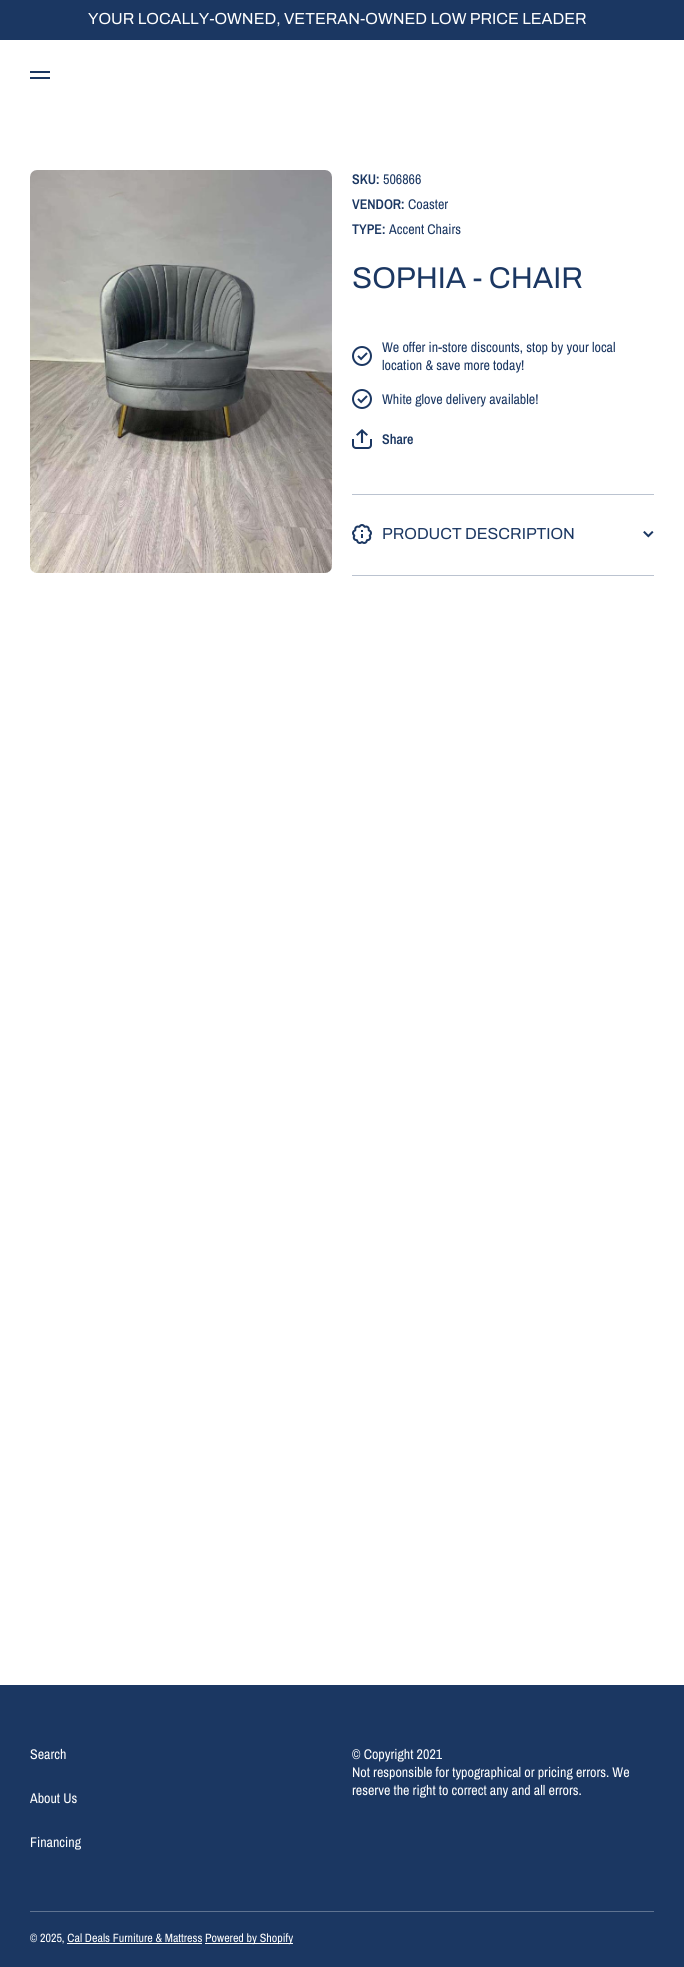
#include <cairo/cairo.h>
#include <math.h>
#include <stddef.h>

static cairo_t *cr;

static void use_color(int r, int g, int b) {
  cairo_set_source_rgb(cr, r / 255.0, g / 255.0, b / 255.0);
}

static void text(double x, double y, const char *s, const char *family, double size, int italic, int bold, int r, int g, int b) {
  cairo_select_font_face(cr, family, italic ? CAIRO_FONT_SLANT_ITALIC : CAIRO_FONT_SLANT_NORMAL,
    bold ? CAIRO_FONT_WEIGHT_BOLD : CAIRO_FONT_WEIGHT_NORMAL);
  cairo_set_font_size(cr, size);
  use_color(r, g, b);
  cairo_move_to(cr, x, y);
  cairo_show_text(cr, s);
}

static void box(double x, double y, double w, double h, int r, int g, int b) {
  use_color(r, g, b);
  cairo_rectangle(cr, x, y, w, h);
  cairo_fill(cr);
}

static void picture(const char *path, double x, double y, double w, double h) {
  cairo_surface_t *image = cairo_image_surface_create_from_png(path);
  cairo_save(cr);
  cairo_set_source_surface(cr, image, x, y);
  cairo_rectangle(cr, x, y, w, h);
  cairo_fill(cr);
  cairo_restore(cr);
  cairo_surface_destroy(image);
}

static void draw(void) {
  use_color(255, 255, 255);
  cairo_paint(cr);
  box(0, 0, 684, 40, 27, 55, 98);
  box(30, 71, 20, 2, 27, 55, 98);
  box(30, 77, 20, 2, 27, 55, 98);
  picture("img_01.png", 30, 170, 302, 403);
  picture("img_02.png", 352, 346, 20, 20);
  picture("img_02.png", 352, 389, 20, 20);
  picture("img_03.png", 352, 429, 20, 20);
  box(352, 494, 302, 1, 187, 195, 208);
  picture("img_04.png", 352, 524, 20, 20);
  picture("img_05.png", 643, 531, 11, 7);
  box(352, 575, 302, 1, 187, 195, 208);
  box(0, 1685, 684, 282, 27, 55, 98);
  box(30, 1911, 624, 1, 95, 115, 145);
  box(67, 1943, 135, 1, 255, 255, 255);
  box(205, 1943, 88, 1, 255, 255, 255);
  text(88, 24, "YOUR LOCALLY-OWNED, VETERAN-OWNED LOW PRICE LEADER", "Archivo", 16, 0, 0, 255, 255, 255);
  text(352, 184, "SKU:", "Archivo Narrow SemiBold", 14, 0, 0, 27, 55, 98);
  text(383, 184, "506866", "Archivo Narrow", 14, 0, 0, 27, 55, 98);
  text(352, 209, "VENDOR:", "Archivo Narrow SemiBold", 14, 0, 0, 27, 55, 98);
  text(408, 209, "Coaster", "Archivo Narrow", 14, 0, 0, 27, 55, 98);
  text(352, 234, "TYPE:", "Archivo Narrow SemiBold", 14, 0, 0, 27, 55, 98);
  text(389, 234, "Accent Chairs", "Archivo Narrow", 14, 0, 0, 27, 55, 98);
  text(352, 288, "SOPHIA - CHAIR", "Archivo", 30, 0, 0, 27, 55, 98);
  text(382, 352, "We offer in-store discounts, stop by your local", "Archivo Narrow", 14, 0, 0, 27, 55, 98);
  text(382, 370, "location & save more today!", "Archivo Narrow", 14, 0, 0, 27, 55, 98);
  text(382, 404, "White glove delivery available!", "Archivo Narrow", 14, 0, 0, 27, 55, 98);
  text(382, 444, "Share", "Archivo Narrow SemiBold", 14, 0, 0, 27, 55, 98);
  text(382, 539, "PRODUCT DESCRIPTION", "Archivo", 16, 0, 0, 27, 55, 98);
  text(30, 1759, "Search", "Archivo Narrow", 14, 0, 0, 255, 255, 255);
  text(30, 1803, "About Us", "Archivo Narrow", 14, 0, 0, 255, 255, 255);
  text(30, 1847, "Financing", "Archivo Narrow", 14, 0, 0, 255, 255, 255);
  text(352, 1759, "© Copyright 2021", "Archivo Narrow", 14, 0, 0, 255, 255, 255);
  text(352, 1777, "Not responsible for typographical or pricing errors. We", "Archivo Narrow", 14, 0, 0, 255, 255, 255);
  text(352, 1795, "reserve the right to correct any and all errors.", "Archivo Narrow", 14, 0, 0, 255, 255, 255);
  text(30, 1942, "© 2025, Cal Deals Furniture & Mattress", "Archivo Narrow", 12, 0, 0, 255, 255, 255);
  text(205, 1942, "Powered by Shopify", "Archivo Narrow", 12, 0, 0, 255, 255, 255);
}

int main(void) {
  cairo_surface_t *surface = cairo_image_surface_create(CAIRO_FORMAT_RGB24, 684, 1967);
  cr = cairo_create(surface);
  cairo_font_options_t *options = cairo_font_options_create();
  cairo_font_options_set_hint_metrics(options, CAIRO_HINT_METRICS_OFF);
  cairo_font_options_set_hint_style(options, CAIRO_HINT_STYLE_NONE);
  cairo_set_font_options(cr, options);
  cairo_set_miter_limit(cr, 4);
  draw();
  cairo_surface_write_to_png(surface, "out.png");
  cairo_font_options_destroy(options);
  cairo_destroy(cr);
  cairo_surface_destroy(surface);
  return 0;
}
